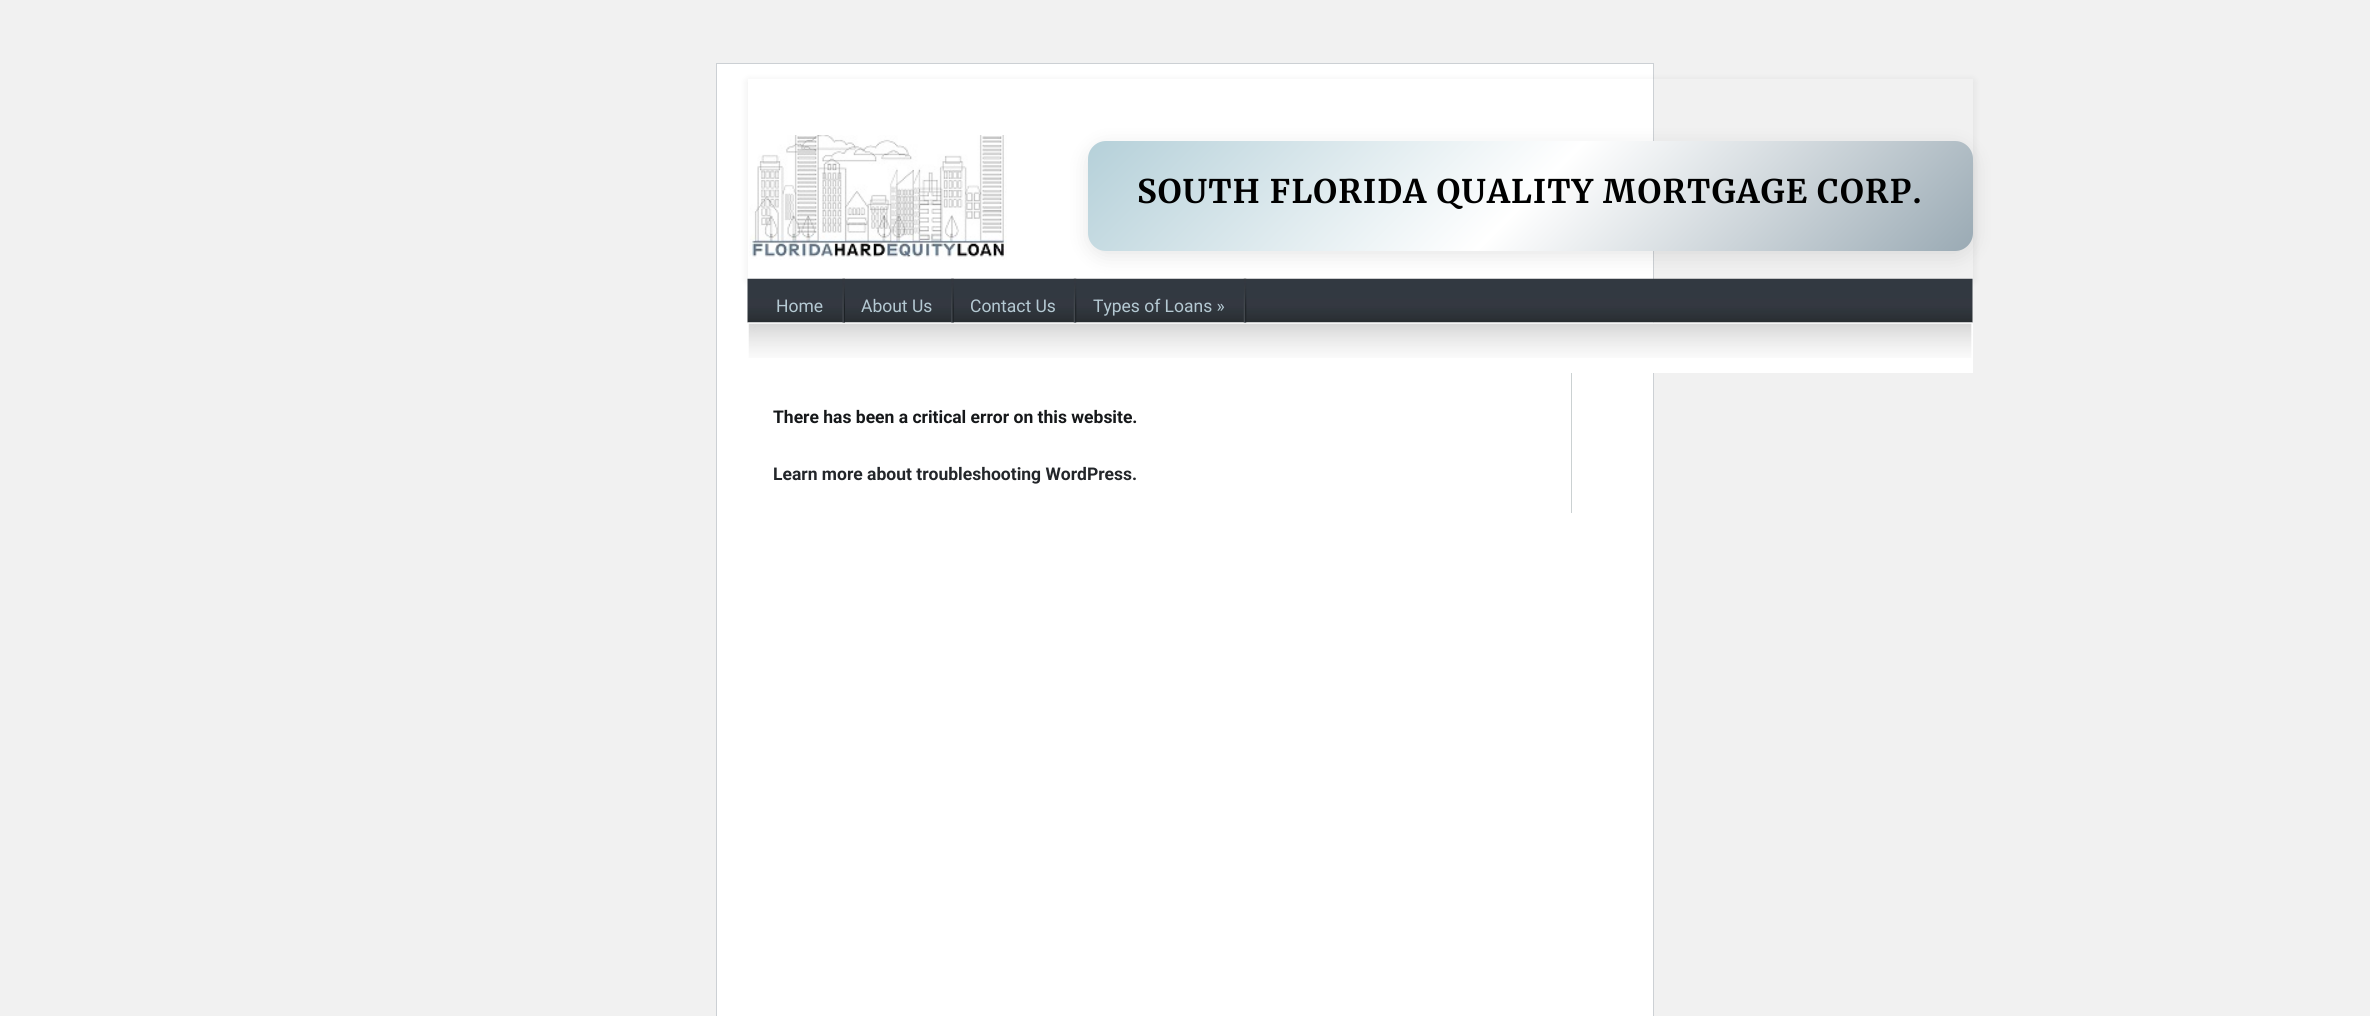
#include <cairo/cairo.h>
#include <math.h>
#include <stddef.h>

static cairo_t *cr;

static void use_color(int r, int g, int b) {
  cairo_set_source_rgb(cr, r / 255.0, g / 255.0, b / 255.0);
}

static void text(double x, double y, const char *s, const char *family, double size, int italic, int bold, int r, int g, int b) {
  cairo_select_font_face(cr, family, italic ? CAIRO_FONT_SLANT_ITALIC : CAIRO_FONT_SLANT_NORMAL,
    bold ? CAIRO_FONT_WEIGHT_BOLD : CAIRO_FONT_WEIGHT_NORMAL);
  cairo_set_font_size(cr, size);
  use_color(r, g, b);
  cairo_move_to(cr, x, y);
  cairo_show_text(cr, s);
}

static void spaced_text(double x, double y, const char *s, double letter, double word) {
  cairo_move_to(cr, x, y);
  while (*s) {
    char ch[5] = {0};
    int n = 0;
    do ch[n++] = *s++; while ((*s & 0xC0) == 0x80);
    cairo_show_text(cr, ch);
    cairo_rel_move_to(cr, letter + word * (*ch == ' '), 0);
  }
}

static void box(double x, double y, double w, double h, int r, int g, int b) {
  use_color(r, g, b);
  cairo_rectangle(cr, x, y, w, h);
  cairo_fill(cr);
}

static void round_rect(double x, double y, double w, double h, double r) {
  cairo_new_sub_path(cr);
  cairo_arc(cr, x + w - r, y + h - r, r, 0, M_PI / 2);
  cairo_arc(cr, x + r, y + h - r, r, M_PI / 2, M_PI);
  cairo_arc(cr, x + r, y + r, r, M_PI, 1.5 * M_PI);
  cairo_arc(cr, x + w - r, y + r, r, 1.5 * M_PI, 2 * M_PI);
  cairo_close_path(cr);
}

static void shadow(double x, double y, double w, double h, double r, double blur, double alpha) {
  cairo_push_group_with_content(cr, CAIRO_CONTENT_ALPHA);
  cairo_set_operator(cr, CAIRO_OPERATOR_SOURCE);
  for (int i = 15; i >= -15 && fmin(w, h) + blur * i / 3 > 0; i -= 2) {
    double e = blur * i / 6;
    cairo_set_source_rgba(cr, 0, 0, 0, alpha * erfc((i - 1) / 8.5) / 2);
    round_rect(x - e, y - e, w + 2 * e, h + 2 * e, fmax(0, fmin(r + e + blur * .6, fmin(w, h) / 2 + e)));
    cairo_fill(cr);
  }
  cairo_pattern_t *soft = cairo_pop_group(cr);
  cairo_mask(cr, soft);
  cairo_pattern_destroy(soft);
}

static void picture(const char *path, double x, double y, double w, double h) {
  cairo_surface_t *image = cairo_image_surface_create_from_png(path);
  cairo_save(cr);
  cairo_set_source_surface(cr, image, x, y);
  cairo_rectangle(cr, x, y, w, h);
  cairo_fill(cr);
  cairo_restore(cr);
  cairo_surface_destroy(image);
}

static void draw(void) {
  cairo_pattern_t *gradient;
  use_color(241, 241, 241);
  cairo_paint(cr);
  use_color(255, 255, 255);
  cairo_rectangle(cr, 716.5, 63.5, 937, 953);
  cairo_fill_preserve(cr);
  use_color(204, 208, 212);
  cairo_set_line_width(cr, 1);
  cairo_stroke(cr);
  cairo_save(cr);
  cairo_set_fill_rule(cr, CAIRO_FILL_RULE_EVEN_ODD);
  cairo_new_path(cr);
  cairo_move_to(cr, 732, 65);
  cairo_line_to(cr, 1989, 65);
  cairo_line_to(cr, 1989, 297);
  cairo_line_to(cr, 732, 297);
  cairo_close_path(cr);
  cairo_move_to(cr, 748, 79);
  cairo_line_to(cr, 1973, 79);
  cairo_line_to(cr, 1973, 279);
  cairo_line_to(cr, 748, 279);
  cairo_close_path(cr);
  cairo_clip(cr);
  use_color(0, 0, 0);
  shadow(748, 81, 1225, 200, 0, 5, 0.08);
  cairo_restore(cr);
  picture("img_01.png", 749, 135, 258, 125);
  picture("img_02.png", 747, 278, 1226, 45);
  use_color(0, 0, 0);
  shadow(1088, 146, 885, 110, 18, 10, 0.1);
  gradient = cairo_pattern_create_linear(1281, -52, 1779, 445);
  cairo_pattern_add_color_stop_rgba(gradient, 0, 0.71, 0.816, 0.851, 1);
  cairo_pattern_add_color_stop_rgba(gradient, 0.5, 1, 1, 1, 1);
  cairo_pattern_add_color_stop_rgba(gradient, 1, 0.604, 0.667, 0.706, 1);
  cairo_set_source(cr, gradient);
  cairo_pattern_destroy(gradient);
  round_rect(1088, 141, 885, 110, 18);
  cairo_fill(cr);
  box(1653, 323, 320, 50, 255, 255, 255);
  picture("img_07.png", 747, 322, 1226, 36);
  picture("img_03.png", 842, 278, 3, 45);
  picture("img_04.png", 951, 278, 3, 45);
  picture("img_05.png", 1073, 278, 4, 45);
  picture("img_06.png", 1243, 278, 4, 45);
  box(1571, 373, 1, 140, 203, 209, 210);
  cairo_select_font_face(cr, "Merriweather", CAIRO_FONT_SLANT_NORMAL, CAIRO_FONT_WEIGHT_BOLD);
  cairo_set_font_size(cr, 32.5);
  use_color(0, 0, 0);
  spaced_text(1137, 203, "SOUTH FLORIDA QUALITY MORTGAGE CORP.", 1.25, 0);
  text(776, 312, "Home", "Roboto", 17.5, 0, 0, 181, 201, 211);
  text(861, 312, "About Us", "Roboto", 17.5, 0, 0, 181, 201, 211);
  text(970, 312, "Contact Us", "Roboto", 17.5, 0, 0, 181, 201, 211);
  text(1093, 312, "Types of Loans »", "Roboto", 17.5, 0, 0, 181, 201, 211);
  text(773, 423, "There has been a critical error on this website.", "Roboto", 17.5, 0, 1, 22, 24, 26);
  text(773, 480, "Learn more about troubleshooting WordPress.", "Roboto", 17.5, 0, 1, 35, 38, 42);
}

int main(void) {
  cairo_surface_t *surface = cairo_image_surface_create(CAIRO_FORMAT_RGB24, 2370, 1016);
  cr = cairo_create(surface);
  cairo_font_options_t *options = cairo_font_options_create();
  cairo_font_options_set_hint_metrics(options, CAIRO_HINT_METRICS_OFF);
  cairo_font_options_set_hint_style(options, CAIRO_HINT_STYLE_NONE);
  cairo_set_font_options(cr, options);
  cairo_set_miter_limit(cr, 4);
  draw();
  cairo_surface_write_to_png(surface, "out.png");
  cairo_font_options_destroy(options);
  cairo_destroy(cr);
  cairo_surface_destroy(surface);
  return 0;
}
